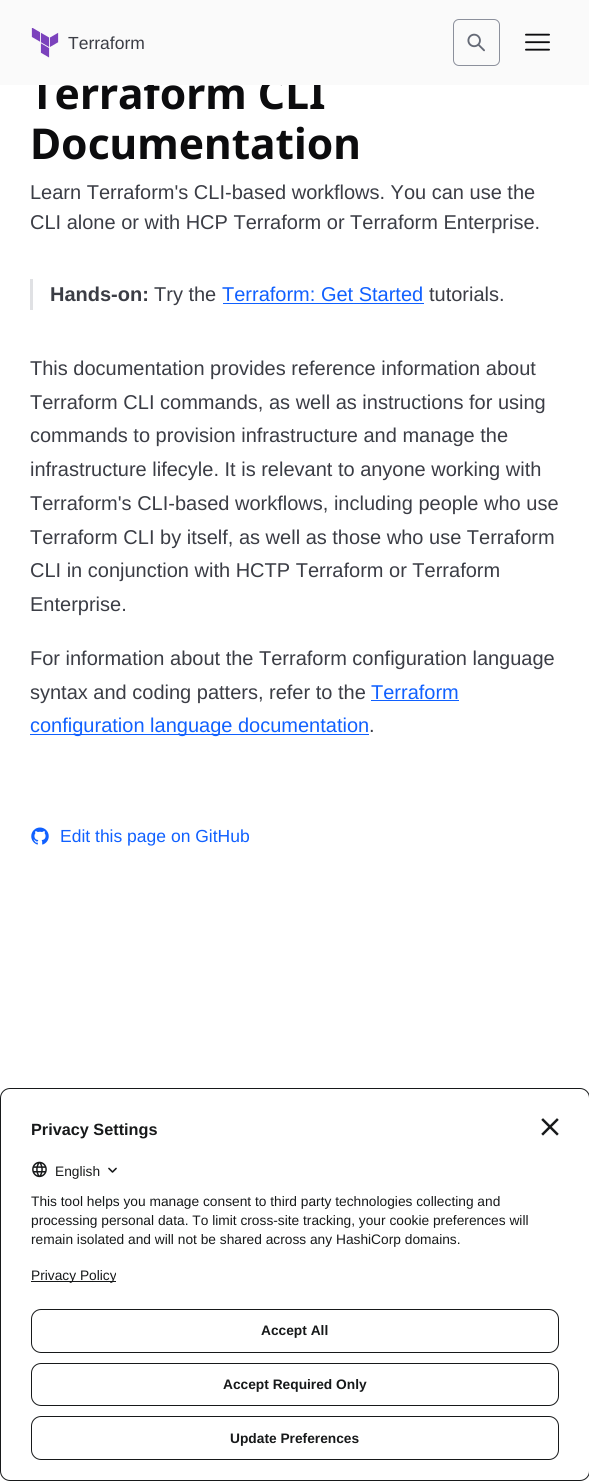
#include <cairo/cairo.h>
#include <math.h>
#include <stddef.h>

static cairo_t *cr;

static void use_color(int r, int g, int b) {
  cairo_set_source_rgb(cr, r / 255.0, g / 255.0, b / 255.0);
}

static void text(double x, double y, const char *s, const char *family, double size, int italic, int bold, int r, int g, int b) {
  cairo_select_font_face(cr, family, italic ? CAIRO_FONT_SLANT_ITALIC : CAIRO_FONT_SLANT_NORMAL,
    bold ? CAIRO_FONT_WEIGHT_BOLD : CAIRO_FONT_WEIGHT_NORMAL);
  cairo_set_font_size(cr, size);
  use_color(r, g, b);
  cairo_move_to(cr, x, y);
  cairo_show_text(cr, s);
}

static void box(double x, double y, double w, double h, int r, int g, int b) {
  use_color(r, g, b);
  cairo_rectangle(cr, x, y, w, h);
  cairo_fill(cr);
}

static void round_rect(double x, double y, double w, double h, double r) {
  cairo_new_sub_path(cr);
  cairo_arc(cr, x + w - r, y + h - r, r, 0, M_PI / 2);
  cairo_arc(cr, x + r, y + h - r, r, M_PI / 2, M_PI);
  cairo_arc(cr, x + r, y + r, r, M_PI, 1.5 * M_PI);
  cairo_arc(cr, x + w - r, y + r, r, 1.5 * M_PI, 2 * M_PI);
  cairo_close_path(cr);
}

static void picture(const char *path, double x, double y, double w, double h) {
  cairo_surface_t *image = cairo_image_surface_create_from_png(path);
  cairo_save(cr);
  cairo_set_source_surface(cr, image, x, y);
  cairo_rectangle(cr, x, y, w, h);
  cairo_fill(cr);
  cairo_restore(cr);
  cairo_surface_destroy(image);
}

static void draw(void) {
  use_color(255, 255, 255);
  cairo_paint(cr);
  box(30, 279, 3, 31, 224, 225, 228);
  box(223, 303, 201, 1, 16, 96, 255);
  box(371, 700, 88, 1, 16, 96, 255);
  box(30, 734, 339, 1, 16, 96, 255);
  picture("img_04.png", 31, 827, 18, 18);
  round_rect(0.5, 1088.5, 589, 392, 9.5);
  use_color(23, 25, 26);
  cairo_set_line_width(cr, 1);
  cairo_stroke(cr);
  picture("img_05.png", 541, 1118, 18, 18);
  picture("img_06.png", 32, 1161, 15, 17);
  picture("img_07.png", 108, 1167, 9, 6);
  box(31, 1281, 85, 1, 23, 25, 26);
  round_rect(31.5, 1309.5, 527, 43, 9.5);
  cairo_stroke(cr);
  round_rect(31.5, 1363.5, 527, 42, 9.5);
  cairo_stroke(cr);
  round_rect(31.5, 1416.5, 527, 43, 9.5);
  cairo_stroke(cr);
  text(30, 109, "Terraform CLI", "Noto Sans", 42.5, 0, 1, 12, 12, 14);
  box(0, 0, 589, 85, 250, 250, 250);
  picture("img_03.png", 525, 33, 25, 18);
  round_rect(453.5, 19.5, 46, 46, 5.5);
  use_color(140, 144, 156);
  cairo_stroke(cr);
  picture("img_02.png", 467, 33, 18, 19);
  picture("img_01.png", 31, 28, 28, 30);
  text(68, 49, "Terraform", "Liberation Sans", 17.5, 0, 0, 59, 61, 69);
  text(30, 159, "Documentation", "Noto Sans", 42.5, 0, 1, 12, 12, 14);
  text(30, 199, "Learn Terraform's CLI-based workflows. You can use the", "Liberation Sans", 20, 0, 0, 59, 61, 69);
  text(30, 229, "CLI alone or with HCP Terraform or Terraform Enterprise.", "Liberation Sans", 20, 0, 0, 59, 61, 69);
  text(50, 301, "Hands-on:", "Liberation Sans", 20, 0, 1, 59, 61, 69);
  text(154, 301, "Try the", "Liberation Sans", 20, 0, 0, 59, 61, 69);
  text(222, 301, "Terraform: Get Started", "Liberation Sans", 20, 0, 0, 16, 96, 255);
  text(429, 301, "tutorials.", "Liberation Sans", 20, 0, 0, 59, 61, 69);
  text(30, 375, "This documentation provides reference information about", "Liberation Sans", 20, 0, 0, 59, 61, 69);
  text(30, 409, "Terraform CLI commands, as well as instructions for using", "Liberation Sans", 20, 0, 0, 59, 61, 69);
  text(30, 442, "commands to provision infrastructure and manage the", "Liberation Sans", 20, 0, 0, 59, 61, 69);
  text(30, 476, "infrastructure lifecyle. It is relevant to anyone working with", "Liberation Sans", 20, 0, 0, 59, 61, 69);
  text(30, 510, "Terraform's CLI-based workflows, including people who use", "Liberation Sans", 20, 0, 0, 59, 61, 69);
  text(30, 544, "Terraform CLI by itself, as well as those who use Terraform", "Liberation Sans", 20, 0, 0, 59, 61, 69);
  text(30, 577, "CLI in conjunction with HCTP Terraform or Terraform", "Liberation Sans", 20, 0, 0, 59, 61, 69);
  text(30, 611, "Enterprise.", "Liberation Sans", 20, 0, 0, 59, 61, 69);
  text(30, 665, "For information about the Terraform configuration language", "Liberation Sans", 20, 0, 0, 59, 61, 69);
  text(30, 699, "syntax and coding patters, refer to the", "Liberation Sans", 20, 0, 0, 59, 61, 69);
  text(371, 699, "Terraform", "Liberation Sans", 20, 0, 0, 16, 96, 255);
  text(30, 732, "configuration language documentation", "Liberation Sans", 20, 0, 0, 16, 96, 255);
  text(369, 732, ".", "Liberation Sans", 20, 0, 0, 59, 61, 69);
  text(60, 842, "Edit this page on GitHub", "Liberation Sans", 17.5, 0, 0, 16, 96, 255);
  text(31, 1135, "Privacy Settings", "Liberation Sans", 16.25, 0, 1, 23, 25, 26);
  text(55, 1176, "English", "Liberation Sans", 13.75, 0, 0, 23, 25, 26);
  text(31, 1206, "This tool helps you manage consent to third party technologies collecting and", "Liberation Sans", 13.75, 0, 0, 23, 25, 26);
  text(31, 1225, "processing personal data. To limit cross-site tracking, your cookie preferences will", "Liberation Sans", 13.75, 0, 0, 23, 25, 26);
  text(31, 1244, "remain isolated and will not be shared across any HashiCorp domains.", "Liberation Sans", 13.75, 0, 0, 23, 25, 26);
  cairo_save(cr);
  cairo_rectangle(cr, 31, 1259, 85, 34);
  cairo_clip(cr);
  text(31, 1280, "Privacy Policy", "Liberation Sans", 13.75, 0, 0, 23, 25, 26);
  cairo_restore(cr);
  text(261, 1335, "Accept All", "Liberation Sans", 13.75, 0, 1, 23, 25, 26);
  text(223, 1389, "Accept Required Only", "Liberation Sans", 13.75, 0, 1, 23, 25, 26);
  text(230, 1443, "Update Preferences", "Liberation Sans", 13.75, 0, 1, 23, 25, 26);
}

int main(void) {
  cairo_surface_t *surface = cairo_image_surface_create(CAIRO_FORMAT_RGB24, 589, 1481);
  cr = cairo_create(surface);
  cairo_font_options_t *options = cairo_font_options_create();
  cairo_font_options_set_hint_metrics(options, CAIRO_HINT_METRICS_OFF);
  cairo_font_options_set_hint_style(options, CAIRO_HINT_STYLE_NONE);
  cairo_set_font_options(cr, options);
  cairo_set_miter_limit(cr, 4);
  draw();
  cairo_surface_write_to_png(surface, "out.png");
  cairo_font_options_destroy(options);
  cairo_destroy(cr);
  cairo_surface_destroy(surface);
  return 0;
}
